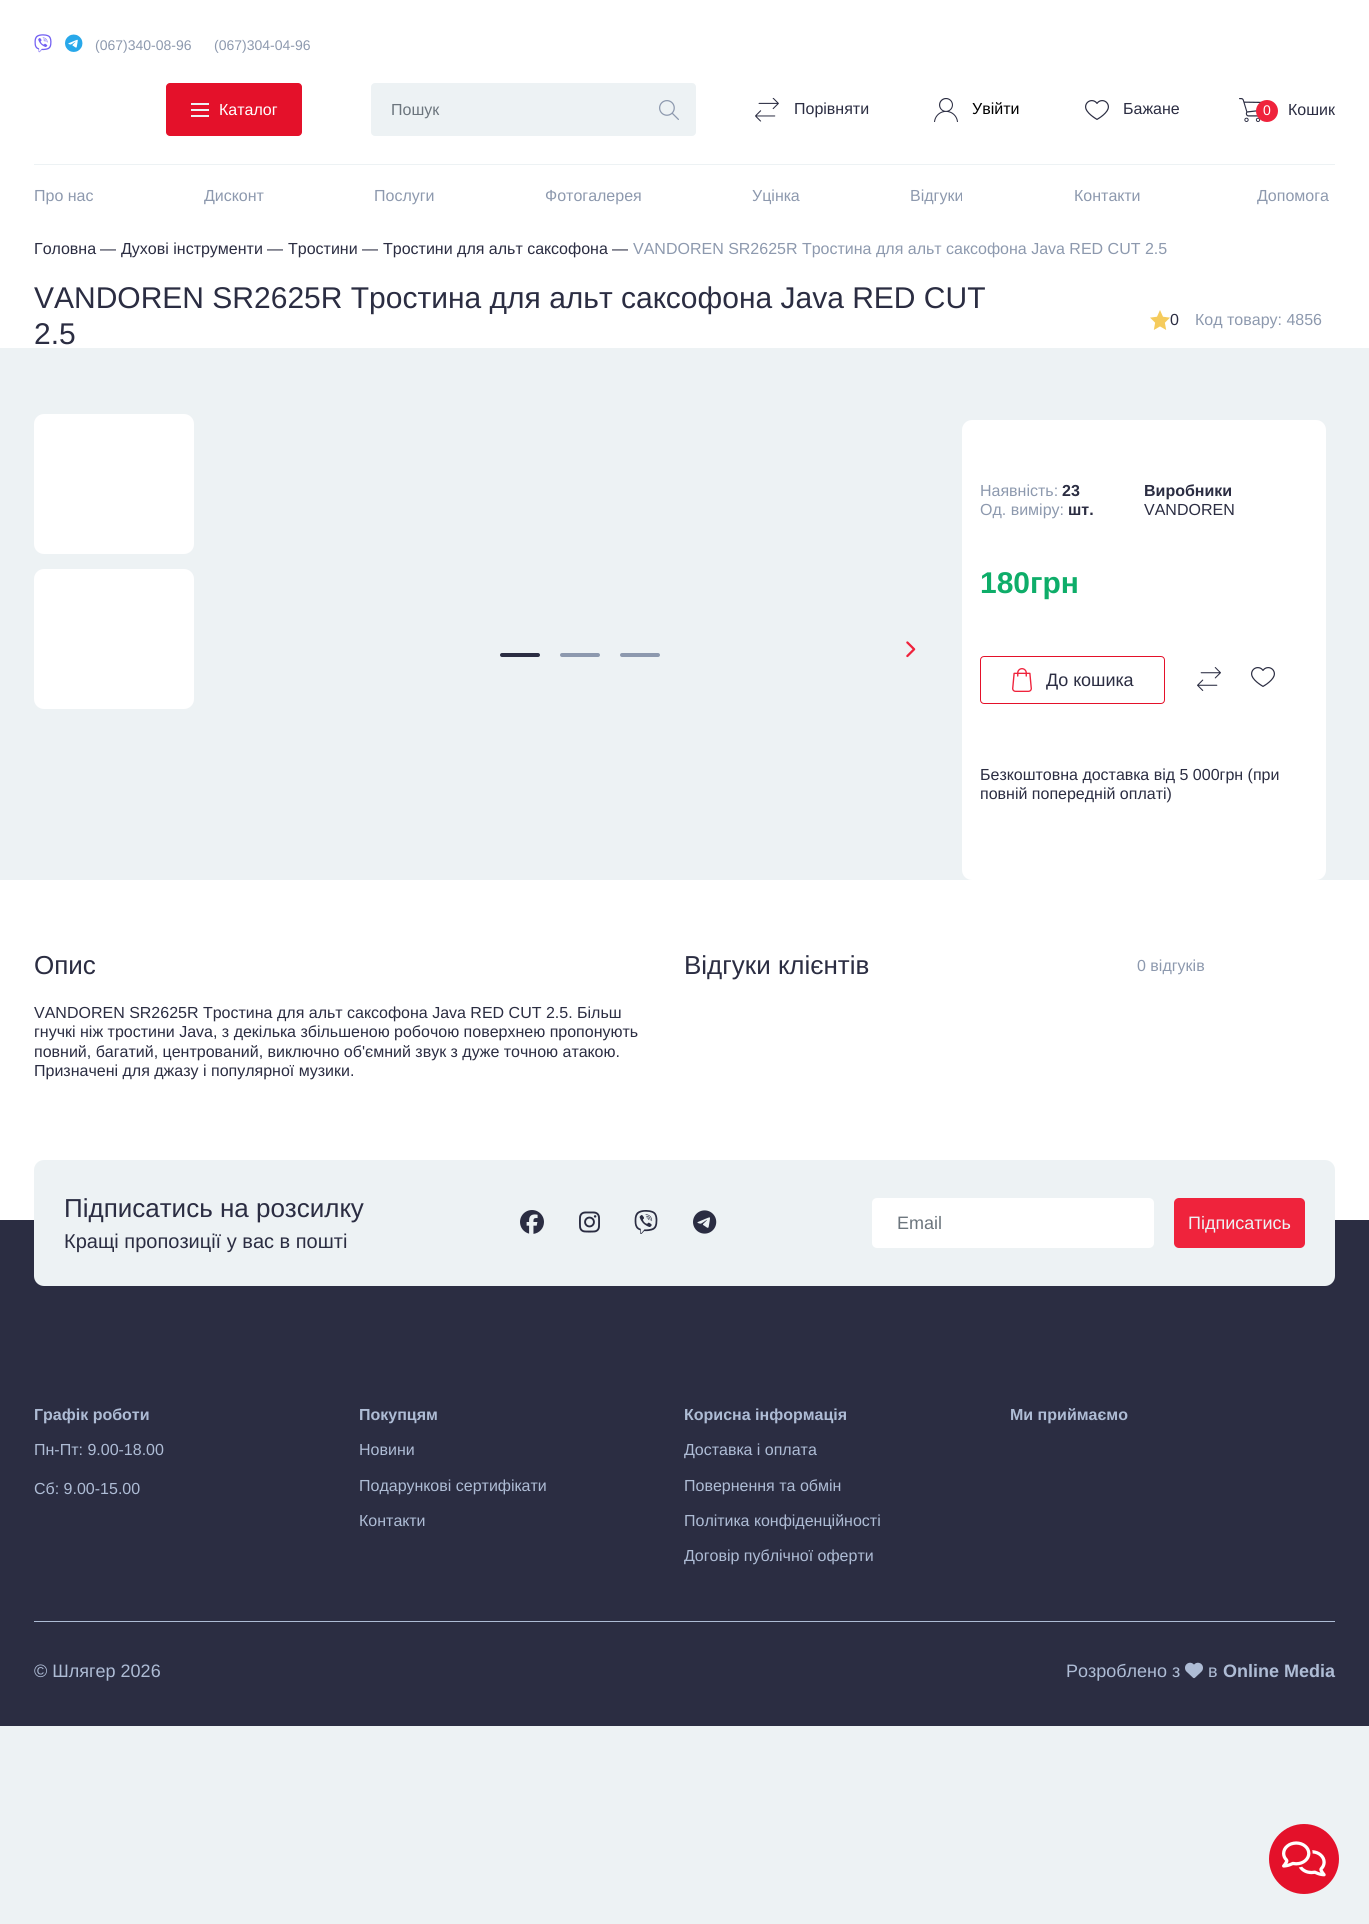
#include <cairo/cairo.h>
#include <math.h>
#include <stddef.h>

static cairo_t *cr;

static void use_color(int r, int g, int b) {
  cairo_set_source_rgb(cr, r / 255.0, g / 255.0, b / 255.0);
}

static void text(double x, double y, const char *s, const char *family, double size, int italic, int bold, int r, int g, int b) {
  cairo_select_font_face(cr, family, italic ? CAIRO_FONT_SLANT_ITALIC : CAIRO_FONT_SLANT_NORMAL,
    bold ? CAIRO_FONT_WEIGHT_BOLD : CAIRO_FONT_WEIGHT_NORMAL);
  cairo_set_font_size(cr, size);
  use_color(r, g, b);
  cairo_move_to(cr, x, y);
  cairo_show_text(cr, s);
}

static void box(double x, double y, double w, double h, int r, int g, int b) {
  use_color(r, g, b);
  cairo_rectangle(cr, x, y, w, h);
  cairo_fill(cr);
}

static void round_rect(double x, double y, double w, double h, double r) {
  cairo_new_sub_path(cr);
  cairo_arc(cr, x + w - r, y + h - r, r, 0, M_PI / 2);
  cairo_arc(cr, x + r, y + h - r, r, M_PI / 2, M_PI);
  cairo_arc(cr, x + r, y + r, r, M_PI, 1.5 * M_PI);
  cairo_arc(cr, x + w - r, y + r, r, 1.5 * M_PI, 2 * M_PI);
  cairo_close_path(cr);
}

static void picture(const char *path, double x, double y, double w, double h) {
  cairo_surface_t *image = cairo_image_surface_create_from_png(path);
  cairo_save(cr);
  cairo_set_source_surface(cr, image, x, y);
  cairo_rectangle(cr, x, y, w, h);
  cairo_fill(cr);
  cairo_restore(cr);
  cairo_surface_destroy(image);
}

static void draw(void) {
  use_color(237, 242, 244);
  cairo_paint(cr);
  box(0, 0, 1369, 348, 255, 255, 255);
  picture("img_01.png", 34, 34, 18, 19);
  picture("img_02.png", 65, 34, 18, 18);
  use_color(228, 17, 42);
  round_rect(166, 83, 136, 53, 4);
  cairo_fill(cr);
  box(191, 103, 18, 2, 237, 242, 244);
  box(191, 109, 18, 2, 237, 242, 244);
  box(191, 115, 18, 2, 237, 242, 244);
  round_rect(371, 83, 325, 53, 4);
  cairo_fill(cr);
  picture("img_03.png", 659, 100, 20, 20);
  picture("img_04.png", 755, 97, 24, 25);
  picture("img_05.png", 934, 98, 24, 24);
  picture("img_06.png", 1085, 100, 24, 20);
  picture("img_07.png", 1239, 98, 24, 24);
  use_color(239, 35, 60);
  cairo_arc(cr, 1267, 111, 11, 0, 2 * M_PI);
  cairo_fill(cr);
  box(34, 164, 1301, 1, 237, 242, 244);
  picture("img_08.png", 1150, 310, 20, 20);
  use_color(255, 255, 255);
  round_rect(34, 414, 160, 140, 10);
  cairo_fill(cr);
  round_rect(34, 569, 160, 140, 10);
  cairo_fill(cr);
  use_color(43, 45, 66);
  round_rect(500, 653, 40, 4, 2);
  cairo_fill(cr);
  use_color(141, 153, 174);
  round_rect(560, 653, 40, 4, 2);
  cairo_fill(cr);
  round_rect(620, 653, 40, 4, 2);
  cairo_fill(cr);
  picture("img_09.png", 906, 641, 10, 17);
  use_color(255, 255, 255);
  round_rect(962, 420, 364, 460, 10);
  cairo_fill(cr);
  round_rect(980.5, 656.5, 184, 47, 3.5);
  use_color(228, 17, 42);
  cairo_set_line_width(cr, 1);
  cairo_stroke(cr);
  picture("img_10.png", 1012, 668, 20, 24);
  picture("img_11.png", 1197, 667, 24, 24);
  picture("img_06.png", 1251, 667, 24, 20);
  box(0, 880, 1369, 340, 255, 255, 255);
  box(0, 1220, 1369, 506, 43, 45, 66);
  use_color(237, 242, 244);
  round_rect(34, 1160, 1301, 126, 10);
  cairo_fill(cr);
  picture("img_12.png", 520, 1210, 24, 24);
  picture("img_13.png", 579, 1211, 21, 22);
  picture("img_14.png", 634, 1210, 24, 24);
  picture("img_15.png", 693, 1210, 24, 24);
  use_color(255, 255, 255);
  round_rect(872, 1198, 282, 50, 5);
  cairo_fill(cr);
  use_color(239, 35, 60);
  round_rect(1174, 1198, 131, 50, 5);
  cairo_fill(cr);
  box(34, 1621, 1301, 1, 174, 188, 213);
  picture("img_16.png", 1185, 1662, 18, 17);
  use_color(228, 17, 42);
  cairo_arc(cr, 1304, 1859, 35, 0, 2 * M_PI);
  cairo_fill(cr);
  picture("img_17.png", 1282, 1841, 44, 36);
  text(95, 50, "(067)340-08-96", "Liberation Sans", 14, 0, 0, 141, 153, 174);
  text(214, 50, "(067)304-04-96", "Liberation Sans", 14, 0, 0, 141, 153, 174);
  text(219, 115, "Каталог", "Liberation Sans", 16, 0, 0, 255, 255, 255);
  text(391, 115, "Пошук", "Liberation Sans", 16, 0, 0, 108, 117, 125);
  text(794, 114, "Порівняти", "Liberation Sans", 16, 0, 0, 43, 45, 66);
  text(972, 114, "Увійти", "Liberation Sans", 16, 0, 0, 0, 0, 0);
  text(1123, 114, "Бажане", "Liberation Sans", 16, 0, 0, 43, 45, 66);
  text(1263, 115, "0", "Liberation Sans", 14, 0, 0, 255, 255, 255);
  text(1288, 115, "Кошик", "Liberation Sans", 16, 0, 0, 43, 45, 66);
  text(34, 201, "Про нас", "Liberation Sans", 16, 0, 0, 141, 153, 174);
  text(204, 201, "Дисконт", "Liberation Sans", 16, 0, 0, 141, 153, 174);
  text(374, 201, "Послуги", "Liberation Sans", 16, 0, 0, 141, 153, 174);
  text(545, 201, "Фотогалерея", "Liberation Sans", 16, 0, 0, 141, 153, 174);
  text(752, 201, "Уцінка", "Liberation Sans", 16, 0, 0, 141, 153, 174);
  text(910, 201, "Відгуки", "Liberation Sans", 16, 0, 0, 141, 153, 174);
  text(1074, 201, "Контакти", "Liberation Sans", 16, 0, 0, 141, 153, 174);
  text(1257, 201, "Допомога", "Liberation Sans", 16, 0, 0, 141, 153, 174);
  text(34, 254, "Головна", "Liberation Sans", 16, 0, 0, 43, 45, 66);
  text(100, 254, "—", "Liberation Sans", 16, 0, 0, 43, 45, 66);
  text(121, 254, "Духові інструменти", "Liberation Sans", 16, 0, 0, 43, 45, 66);
  text(267, 254, "—", "Liberation Sans", 16, 0, 0, 43, 45, 66);
  text(288, 254, "Тростини", "Liberation Sans", 16, 0, 0, 43, 45, 66);
  text(362, 254, "—", "Liberation Sans", 16, 0, 0, 43, 45, 66);
  text(383, 254, "Тростини для альт саксофона", "Liberation Sans", 16, 0, 0, 43, 45, 66);
  text(612, 254, "—", "Liberation Sans", 16, 0, 0, 43, 45, 66);
  text(633, 254, "VANDOREN SR2625R Тростина для альт саксофона Java RED CUT 2.5", "Liberation Sans", 16, 0, 0, 141, 153, 174);
  text(34, 308, "VANDOREN SR2625R Тростина для альт саксофона Java RED CUT", "Liberation Sans", 30, 0, 0, 43, 45, 66);
  text(34, 344, "2.5", "Liberation Sans", 30, 0, 0, 43, 45, 66);
  text(1170, 325, "0", "Liberation Sans", 16, 0, 0, 43, 45, 66);
  text(1195, 325, "Код товару: 4856", "Liberation Sans", 16, 0, 0, 141, 153, 174);
  text(980, 496, "Наявність:", "Liberation Sans", 16, 0, 0, 141, 153, 174);
  text(1062, 496, "23", "Liberation Sans", 16, 0, 1, 43, 45, 66);
  text(980, 515, "Од. виміру:", "Liberation Sans", 16, 0, 0, 141, 153, 174);
  text(1068, 515, "шт.", "Liberation Sans", 16, 0, 1, 43, 45, 66);
  text(1144, 496, "Виробники", "Liberation Sans", 16, 0, 1, 43, 45, 66);
  text(1144, 515, "VANDOREN", "Liberation Sans", 16, 0, 0, 43, 45, 66);
  text(980, 593, "180грн", "Liberation Sans", 30, 0, 1, 14, 173, 105);
  text(1046, 686, "До кошика", "Liberation Sans", 18, 0, 0, 43, 45, 66);
  text(980, 780, "Безкоштовна доставка від 5 000грн (при", "Liberation Sans", 16, 0, 0, 43, 45, 66);
  text(980, 799, "повній попередній оплаті)", "Liberation Sans", 16, 0, 0, 43, 45, 66);
  text(34, 974, "Опис", "Liberation Sans", 26, 0, 0, 43, 45, 66);
  text(34, 1018, "VANDOREN SR2625R Тростина для альт саксофона Java RED CUT 2.5. Більш", "Liberation Sans", 16, 0, 0, 43, 45, 66);
  text(34, 1037, "гнучкі ніж тростини Java, з декілька збільшеною робочою поверхнею пропонують", "Liberation Sans", 16, 0, 0, 43, 45, 66);
  text(34, 1057, "повний, багатий, центрований, виключно об'ємний звук з дуже точною атакою.", "Liberation Sans", 16, 0, 0, 43, 45, 66);
  text(34, 1076, "Призначені для джазу і популярної музики.", "Liberation Sans", 16, 0, 0, 43, 45, 66);
  text(684, 974, "Відгуки клієнтів", "Liberation Sans", 26, 0, 0, 43, 45, 66);
  text(1137, 971, "0 відгуків", "Liberation Sans", 16, 0, 0, 141, 153, 174);
  text(64, 1217, "Підписатись на розсилку", "Liberation Sans", 26, 0, 0, 43, 45, 66);
  text(64, 1248, "Кращі пропозиції у вас в пошті", "Liberation Sans", 20, 0, 0, 43, 45, 66);
  text(897, 1229, "Email", "Liberation Sans", 18, 0, 0, 108, 117, 125);
  text(1188, 1229, "Підписатись", "Liberation Sans", 18, 0, 0, 237, 242, 244);
  text(34, 1420, "Графік роботи", "Liberation Sans", 16, 0, 1, 174, 188, 213);
  text(34, 1455, "Пн-Пт: 9.00-18.00", "Liberation Sans", 16, 0, 0, 174, 188, 213);
  text(34, 1494, "Сб: 9.00-15.00", "Liberation Sans", 16, 0, 0, 174, 188, 213);
  text(359, 1420, "Покупцям", "Liberation Sans", 16, 0, 1, 174, 188, 213);
  text(359, 1455, "Новини", "Liberation Sans", 16, 0, 0, 174, 188, 213);
  text(359, 1491, "Подарункові сертифікати", "Liberation Sans", 16, 0, 0, 174, 188, 213);
  text(359, 1526, "Контакти", "Liberation Sans", 16, 0, 0, 174, 188, 213);
  text(684, 1420, "Корисна інформація", "Liberation Sans", 16, 0, 1, 174, 188, 213);
  text(684, 1455, "Доставка і оплата", "Liberation Sans", 16, 0, 0, 174, 188, 213);
  text(684, 1491, "Повернення та обмін", "Liberation Sans", 16, 0, 0, 174, 188, 213);
  text(684, 1526, "Політика конфіденційності", "Liberation Sans", 16, 0, 0, 174, 188, 213);
  text(684, 1561, "Договір публічної оферти", "Liberation Sans", 16, 0, 0, 174, 188, 213);
  text(1010, 1420, "Ми приймаємо", "Liberation Sans", 16, 0, 1, 174, 188, 213);
  text(34, 1677, "© Шлягер 2026", "Liberation Sans", 18, 0, 0, 174, 188, 213);
  text(1066, 1677, "Розроблено з", "Liberation Sans", 18, 0, 0, 174, 188, 213);
  text(1208, 1677, "в", "Liberation Sans", 18, 0, 0, 174, 188, 213);
  text(1223, 1677, "Online Media", "Liberation Sans", 18, 0, 1, 174, 188, 213);
}

int main(void) {
  cairo_surface_t *surface = cairo_image_surface_create(CAIRO_FORMAT_RGB24, 1369, 1924);
  cr = cairo_create(surface);
  cairo_font_options_t *options = cairo_font_options_create();
  cairo_font_options_set_hint_metrics(options, CAIRO_HINT_METRICS_OFF);
  cairo_font_options_set_hint_style(options, CAIRO_HINT_STYLE_NONE);
  cairo_set_font_options(cr, options);
  cairo_set_miter_limit(cr, 4);
  draw();
  cairo_surface_write_to_png(surface, "out.png");
  cairo_font_options_destroy(options);
  cairo_destroy(cr);
  cairo_surface_destroy(surface);
  return 0;
}
